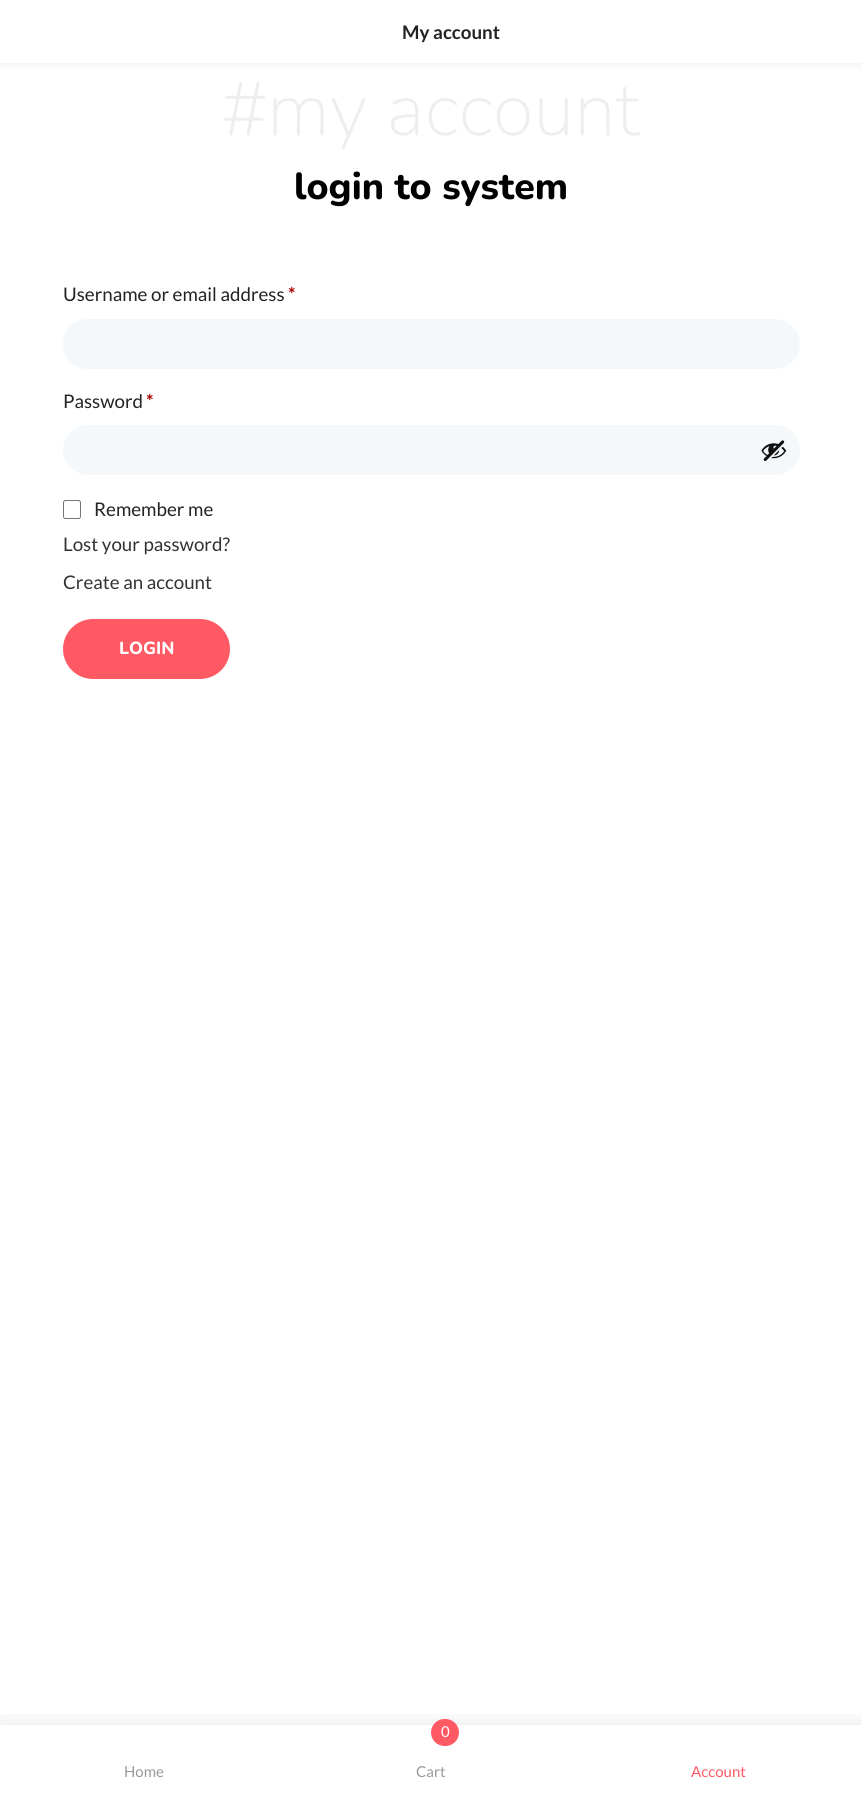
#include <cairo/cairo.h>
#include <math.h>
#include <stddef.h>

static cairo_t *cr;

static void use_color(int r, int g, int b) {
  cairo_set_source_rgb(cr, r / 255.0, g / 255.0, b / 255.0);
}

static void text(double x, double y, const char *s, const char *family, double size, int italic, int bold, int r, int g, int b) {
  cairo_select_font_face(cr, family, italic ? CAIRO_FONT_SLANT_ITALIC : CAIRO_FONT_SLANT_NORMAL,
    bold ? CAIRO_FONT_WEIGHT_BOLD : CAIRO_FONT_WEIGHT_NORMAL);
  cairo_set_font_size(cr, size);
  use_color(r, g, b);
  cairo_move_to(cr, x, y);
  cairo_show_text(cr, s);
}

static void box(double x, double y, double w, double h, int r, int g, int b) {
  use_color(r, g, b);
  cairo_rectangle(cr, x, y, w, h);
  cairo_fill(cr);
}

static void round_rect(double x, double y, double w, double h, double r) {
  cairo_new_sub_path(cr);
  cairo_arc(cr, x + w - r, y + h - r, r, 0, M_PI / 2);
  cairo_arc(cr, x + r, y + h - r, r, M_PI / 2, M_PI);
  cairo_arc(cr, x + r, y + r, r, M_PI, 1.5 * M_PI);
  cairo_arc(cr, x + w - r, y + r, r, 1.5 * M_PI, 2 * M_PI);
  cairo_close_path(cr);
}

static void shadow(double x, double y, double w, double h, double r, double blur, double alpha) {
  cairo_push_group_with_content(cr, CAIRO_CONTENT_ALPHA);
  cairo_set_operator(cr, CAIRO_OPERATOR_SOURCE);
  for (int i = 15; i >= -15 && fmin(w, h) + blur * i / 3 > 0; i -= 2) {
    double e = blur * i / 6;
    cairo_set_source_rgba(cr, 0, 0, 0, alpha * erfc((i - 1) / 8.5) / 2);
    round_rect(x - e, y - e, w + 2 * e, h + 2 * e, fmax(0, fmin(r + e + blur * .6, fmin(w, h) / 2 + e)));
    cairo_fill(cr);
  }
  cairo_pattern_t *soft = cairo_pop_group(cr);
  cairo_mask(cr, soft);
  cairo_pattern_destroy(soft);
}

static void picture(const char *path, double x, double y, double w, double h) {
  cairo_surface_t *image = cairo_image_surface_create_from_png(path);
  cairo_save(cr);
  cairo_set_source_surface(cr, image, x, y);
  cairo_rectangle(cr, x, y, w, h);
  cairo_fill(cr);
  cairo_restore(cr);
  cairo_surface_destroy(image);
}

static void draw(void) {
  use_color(255, 255, 255);
  cairo_paint(cr);
  use_color(0, 0, 0);
  shadow(0, 3, 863, 62, 0, 4, 0.06);
  box(0, 0, 862, 63, 255, 255, 255);
  use_color(244, 248, 251);
  round_rect(63, 319, 737, 50, 25);
  cairo_fill(cr);
  round_rect(63, 425, 737, 50, 25);
  cairo_fill(cr);
  picture("img_01.png", 761, 440, 26, 21);
  round_rect(63.5, 500.5, 17, 18, 2);
  use_color(118, 118, 118);
  cairo_set_line_width(cr, 1);
  cairo_stroke(cr);
  use_color(255, 89, 100);
  round_rect(63, 619, 167, 60, 30);
  cairo_fill(cr);
  cairo_save(cr);
  cairo_rectangle(cr, 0, 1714, 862, 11);
  cairo_clip(cr);
  use_color(0, 0, 0);
  shadow(0, 1725, 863, 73, 0, 12.5, 0.1);
  cairo_restore(cr);
  round_rect(431, 1719, 28, 27, 13.5);
  cairo_fill(cr);
  text(402, 39, "My account", "Lato", 18.75, 0, 1, 35, 35, 35);
  text(222, 135, "#my account", "Nunito ExtraLight", 75, 0, 0, 238, 238, 238);
  text(294, 199, "login to system", "Nunito ExtraBold", 37.5, 0, 0, 0, 0, 0);
  text(63, 301, "Username or email address", "Lato", 18.75, 0, 0, 35, 35, 35);
  text(288, 301, "*", "Lato", 18.75, 0, 1, 170, 0, 0);
  text(63, 408, "Password", "Lato", 18.75, 0, 0, 35, 35, 35);
  text(146, 408, "*", "Lato", 18.75, 0, 1, 170, 0, 0);
  text(94, 516, "Remember me", "Lato", 18.75, 0, 0, 35, 35, 35);
  text(63, 551, "Lost your password?", "Lato", 18.75, 0, 0, 50, 50, 50);
  text(63, 589, "Create an account", "Lato", 18.75, 0, 0, 50, 50, 50);
  text(119, 654, "LOGIN", "Nunito ExtraBold", 17.5, 0, 0, 255, 255, 255);
  text(124, 1777, "Home", "Lato", 15, 0, 0, 153, 153, 153);
  text(441, 1737, "0", "Lato", 15, 0, 0, 255, 255, 255);
  text(416, 1777, "Cart", "Lato", 15, 0, 0, 153, 153, 153);
  text(691, 1777, "Account", "Lato", 15, 0, 0, 255, 89, 100);
}

int main(void) {
  cairo_surface_t *surface = cairo_image_surface_create(CAIRO_FORMAT_RGB24, 862, 1796);
  cr = cairo_create(surface);
  cairo_font_options_t *options = cairo_font_options_create();
  cairo_font_options_set_hint_metrics(options, CAIRO_HINT_METRICS_OFF);
  cairo_font_options_set_hint_style(options, CAIRO_HINT_STYLE_NONE);
  cairo_set_font_options(cr, options);
  cairo_set_miter_limit(cr, 4);
  draw();
  cairo_surface_write_to_png(surface, "out.png");
  cairo_font_options_destroy(options);
  cairo_destroy(cr);
  cairo_surface_destroy(surface);
  return 0;
}
